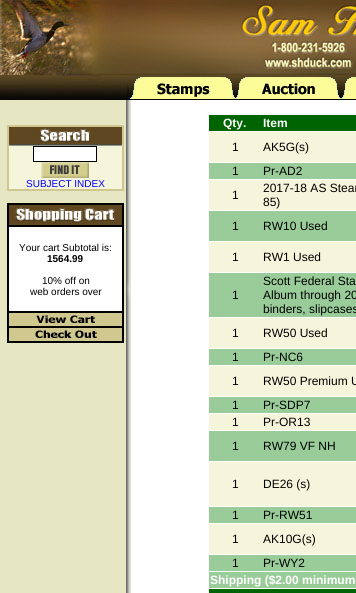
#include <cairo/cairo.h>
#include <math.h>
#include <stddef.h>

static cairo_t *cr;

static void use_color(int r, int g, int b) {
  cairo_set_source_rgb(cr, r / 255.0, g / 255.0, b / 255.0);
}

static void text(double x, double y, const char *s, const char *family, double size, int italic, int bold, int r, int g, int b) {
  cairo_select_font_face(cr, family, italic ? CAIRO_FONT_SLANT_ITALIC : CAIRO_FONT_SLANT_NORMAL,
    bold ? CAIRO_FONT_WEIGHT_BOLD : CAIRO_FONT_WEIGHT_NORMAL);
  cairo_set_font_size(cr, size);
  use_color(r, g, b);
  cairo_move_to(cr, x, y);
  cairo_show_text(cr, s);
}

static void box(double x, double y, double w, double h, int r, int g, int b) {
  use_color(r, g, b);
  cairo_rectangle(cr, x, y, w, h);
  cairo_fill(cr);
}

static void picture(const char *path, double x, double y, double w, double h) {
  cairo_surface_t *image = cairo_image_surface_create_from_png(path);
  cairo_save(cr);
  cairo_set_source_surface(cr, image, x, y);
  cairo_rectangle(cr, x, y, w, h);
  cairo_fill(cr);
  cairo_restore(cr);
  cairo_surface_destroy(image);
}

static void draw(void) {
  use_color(255, 255, 255);
  cairo_paint(cr);
  picture("img_01.png", 0, 0, 356, 75);
  picture("img_02.png", 129, 75, 1, 25);
  picture("img_03.png", 0, 75, 129, 25);
  picture("img_04.png", 130, 75, 105, 25);
  picture("img_05.png", 130, 77, 105, 22);
  picture("img_06.png", 235, 75, 106, 25);
  picture("img_07.png", 235, 77, 106, 22);
  picture("img_08.png", 341, 75, 15, 25);
  picture("img_09.png", 341, 77, 15, 22);
  picture("img_10.png", 0, 100, 131, 493);
  box(9, 146, 113, 43, 245, 245, 220);
  cairo_rectangle(cr, 7.5, 125.5, 116, 65);
  use_color(207, 199, 143);
  cairo_set_line_width(cr, 1);
  cairo_stroke(cr);
  cairo_rectangle(cr, 8.5, 126.5, 114, 63);
  cairo_stroke(cr);
  picture("img_11.png", 9, 127, 113, 19);
  use_color(255, 255, 255);
  cairo_rectangle(cr, 33.5, 146.5, 63, 15);
  cairo_fill_preserve(cr);
  use_color(0, 0, 0);
  cairo_stroke(cr);
  picture("img_12.png", 41, 162, 48, 16);
  box(9, 227, 113, 84, 255, 255, 255);
  cairo_rectangle(cr, 7.5, 203.5, 116, 139);
  use_color(0, 0, 0);
  cairo_stroke(cr);
  cairo_rectangle(cr, 8.5, 204.5, 114, 21);
  cairo_stroke(cr);
  picture("img_13.png", 9, 205, 113, 20);
  cairo_rectangle(cr, 8.5, 226.5, 114, 85);
  cairo_stroke(cr);
  cairo_rectangle(cr, 8.5, 312.5, 114, 14);
  cairo_stroke(cr);
  picture("img_14.png", 9, 313, 113, 13);
  cairo_rectangle(cr, 8.5, 327.5, 114, 14);
  cairo_stroke(cr);
  picture("img_15.png", 9, 328, 113, 13);
  box(209, 115, 147, 16, 0, 100, 0);
  box(209, 132, 147, 30, 245, 245, 220);
  box(209, 163, 147, 16, 153, 204, 153);
  box(209, 180, 147, 30, 245, 245, 220);
  box(209, 211, 147, 30, 153, 204, 153);
  box(209, 242, 147, 30, 245, 245, 220);
  box(209, 273, 147, 44, 153, 204, 153);
  box(209, 318, 147, 30, 245, 245, 220);
  box(209, 349, 147, 16, 153, 204, 153);
  box(209, 366, 147, 30, 245, 245, 220);
  box(209, 397, 147, 16, 153, 204, 153);
  box(209, 414, 147, 16, 245, 245, 220);
  box(209, 431, 147, 30, 153, 204, 153);
  box(209, 462, 147, 44, 245, 245, 220);
  box(209, 507, 147, 16, 153, 204, 153);
  box(209, 524, 147, 30, 245, 245, 220);
  box(209, 555, 147, 16, 153, 204, 153);
  box(209, 572, 147, 16, 153, 204, 153);
  box(209, 589, 147, 4, 0, 100, 0);
  text(26, 187, "SUBJECT INDEX", "Liberation Sans", 10, 0, 0, 0, 0, 255);
  text(19, 251, "Your cart Subtotal is:", "Liberation Sans", 10, 0, 0, 0, 0, 0);
  text(47, 262, "1564.99", "Liberation Sans", 10, 0, 1, 0, 0, 0);
  text(42, 284, "10% off on", "Liberation Sans", 10, 0, 0, 0, 0, 0);
  text(30, 295, "web orders over", "Liberation Sans", 10, 0, 0, 0, 0, 0);
  text(223, 127, "Qty.", "Liberation Sans", 12, 0, 1, 255, 255, 255);
  text(263, 127, "Item", "Liberation Sans", 12, 0, 1, 255, 255, 255);
  text(232, 151, "1", "Liberation Sans", 12, 0, 0, 0, 0, 0);
  text(263, 151, "AK5G(s)", "Liberation Sans", 12, 0, 0, 0, 0, 0);
  text(232, 175, "1", "Liberation Sans", 12, 0, 0, 0, 0, 0);
  text(263, 175, "Pr-AD2", "Liberation Sans", 12, 0, 0, 0, 0, 0);
  text(232, 199, "1", "Liberation Sans", 12, 0, 0, 0, 0, 0);
  text(263, 192, "2017-18 AS Stear", "Liberation Sans", 12, 0, 0, 0, 0, 0);
  text(263, 206, "85)", "Liberation Sans", 12, 0, 0, 0, 0, 0);
  text(232, 230, "1", "Liberation Sans", 12, 0, 0, 0, 0, 0);
  text(263, 230, "RW10 Used", "Liberation Sans", 12, 0, 0, 0, 0, 0);
  text(232, 261, "1", "Liberation Sans", 12, 0, 0, 0, 0, 0);
  text(263, 261, "RW1 Used", "Liberation Sans", 12, 0, 0, 0, 0, 0);
  text(232, 299, "1", "Liberation Sans", 12, 0, 0, 0, 0, 0);
  text(263, 285, "Scott Federal Sta", "Liberation Sans", 12, 0, 0, 0, 0, 0);
  text(263, 299, "Album through 20", "Liberation Sans", 12, 0, 0, 0, 0, 0);
  text(263, 313, "binders, slipcases", "Liberation Sans", 12, 0, 0, 0, 0, 0);
  text(232, 337, "1", "Liberation Sans", 12, 0, 0, 0, 0, 0);
  text(263, 337, "RW50 Used", "Liberation Sans", 12, 0, 0, 0, 0, 0);
  text(232, 361, "1", "Liberation Sans", 12, 0, 0, 0, 0, 0);
  text(263, 361, "Pr-NC6", "Liberation Sans", 12, 0, 0, 0, 0, 0);
  text(232, 385, "1", "Liberation Sans", 12, 0, 0, 0, 0, 0);
  text(263, 385, "RW50 Premium U", "Liberation Sans", 12, 0, 0, 0, 0, 0);
  text(232, 409, "1", "Liberation Sans", 12, 0, 0, 0, 0, 0);
  text(263, 409, "Pr-SDP7", "Liberation Sans", 12, 0, 0, 0, 0, 0);
  text(232, 426, "1", "Liberation Sans", 12, 0, 0, 0, 0, 0);
  text(263, 426, "Pr-OR13", "Liberation Sans", 12, 0, 0, 0, 0, 0);
  text(232, 450, "1", "Liberation Sans", 12, 0, 0, 0, 0, 0);
  text(263, 450, "RW79 VF NH", "Liberation Sans", 12, 0, 0, 0, 0, 0);
  text(232, 488, "1", "Liberation Sans", 12, 0, 0, 0, 0, 0);
  text(263, 488, "DE26 (s)", "Liberation Sans", 12, 0, 0, 0, 0, 0);
  text(232, 519, "1", "Liberation Sans", 12, 0, 0, 0, 0, 0);
  text(263, 519, "Pr-RW51", "Liberation Sans", 12, 0, 0, 0, 0, 0);
  text(232, 543, "1", "Liberation Sans", 12, 0, 0, 0, 0, 0);
  text(263, 543, "AK10G(s)", "Liberation Sans", 12, 0, 0, 0, 0, 0);
  text(232, 567, "1", "Liberation Sans", 12, 0, 0, 0, 0, 0);
  text(263, 567, "Pr-WY2", "Liberation Sans", 12, 0, 0, 0, 0, 0);
  text(210, 584, "Shipping ($2.00 minimum", "Liberation Sans", 12, 0, 1, 255, 255, 255);
}

int main(void) {
  cairo_surface_t *surface = cairo_image_surface_create(CAIRO_FORMAT_RGB24, 356, 593);
  cr = cairo_create(surface);
  cairo_font_options_t *options = cairo_font_options_create();
  cairo_font_options_set_hint_metrics(options, CAIRO_HINT_METRICS_OFF);
  cairo_font_options_set_hint_style(options, CAIRO_HINT_STYLE_NONE);
  cairo_set_font_options(cr, options);
  cairo_set_miter_limit(cr, 4);
  draw();
  cairo_surface_write_to_png(surface, "out.png");
  cairo_font_options_destroy(options);
  cairo_destroy(cr);
  cairo_surface_destroy(surface);
  return 0;
}
